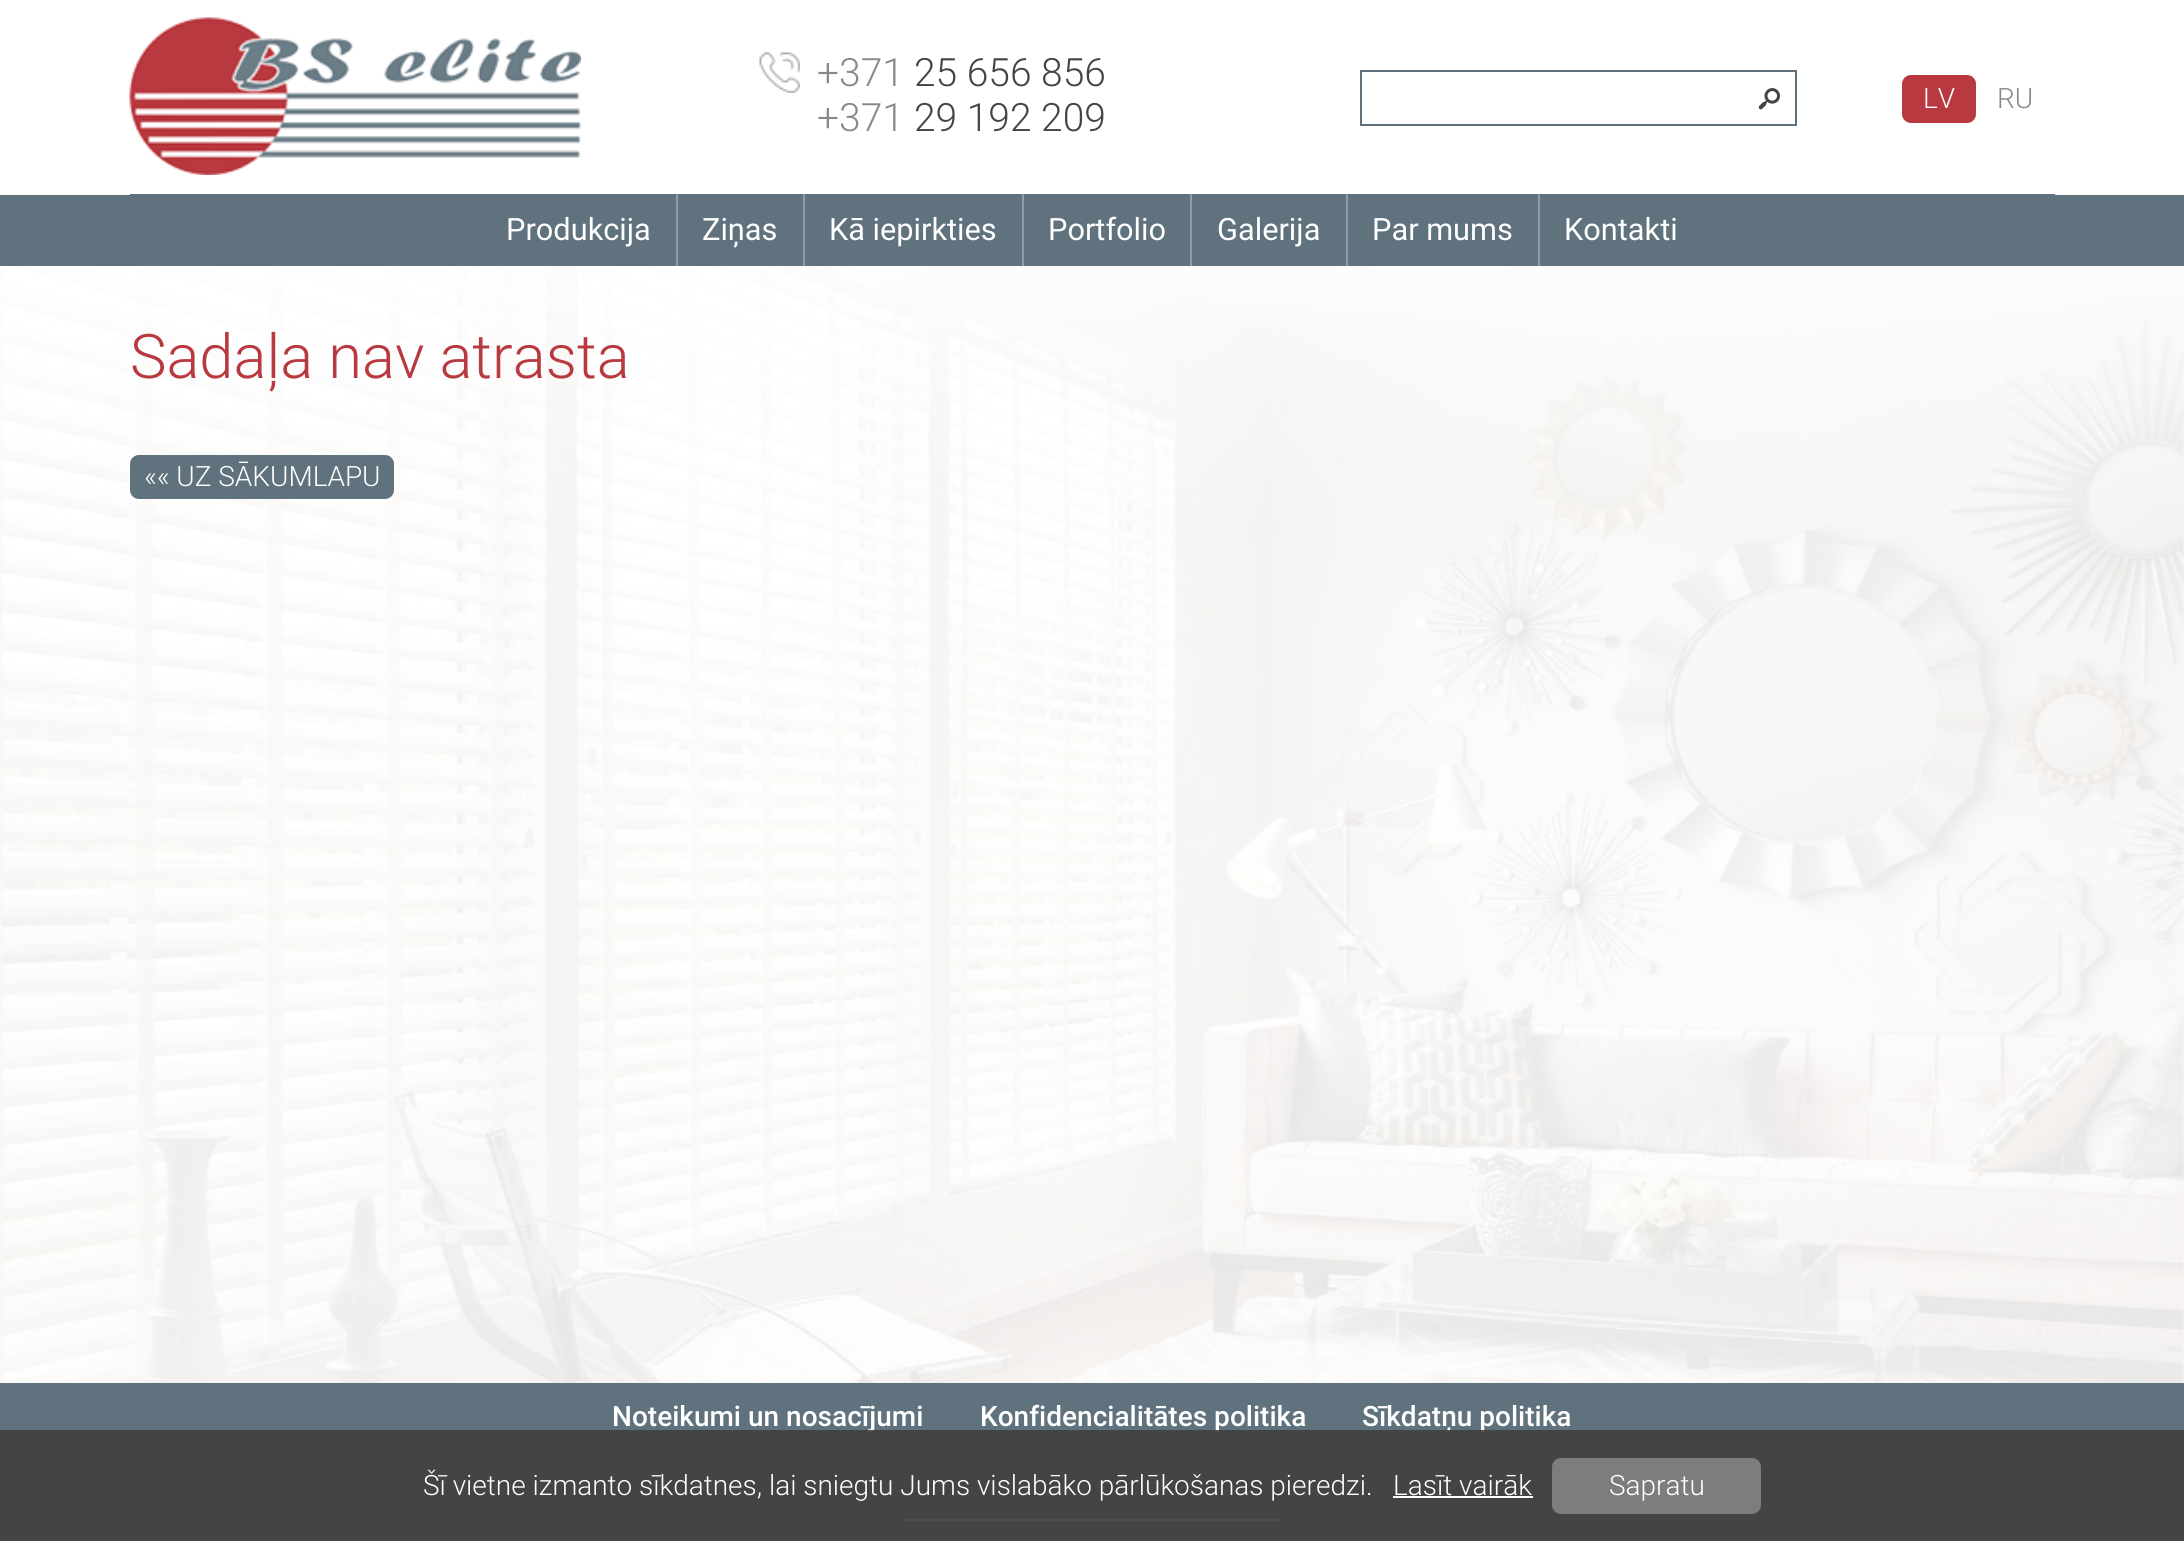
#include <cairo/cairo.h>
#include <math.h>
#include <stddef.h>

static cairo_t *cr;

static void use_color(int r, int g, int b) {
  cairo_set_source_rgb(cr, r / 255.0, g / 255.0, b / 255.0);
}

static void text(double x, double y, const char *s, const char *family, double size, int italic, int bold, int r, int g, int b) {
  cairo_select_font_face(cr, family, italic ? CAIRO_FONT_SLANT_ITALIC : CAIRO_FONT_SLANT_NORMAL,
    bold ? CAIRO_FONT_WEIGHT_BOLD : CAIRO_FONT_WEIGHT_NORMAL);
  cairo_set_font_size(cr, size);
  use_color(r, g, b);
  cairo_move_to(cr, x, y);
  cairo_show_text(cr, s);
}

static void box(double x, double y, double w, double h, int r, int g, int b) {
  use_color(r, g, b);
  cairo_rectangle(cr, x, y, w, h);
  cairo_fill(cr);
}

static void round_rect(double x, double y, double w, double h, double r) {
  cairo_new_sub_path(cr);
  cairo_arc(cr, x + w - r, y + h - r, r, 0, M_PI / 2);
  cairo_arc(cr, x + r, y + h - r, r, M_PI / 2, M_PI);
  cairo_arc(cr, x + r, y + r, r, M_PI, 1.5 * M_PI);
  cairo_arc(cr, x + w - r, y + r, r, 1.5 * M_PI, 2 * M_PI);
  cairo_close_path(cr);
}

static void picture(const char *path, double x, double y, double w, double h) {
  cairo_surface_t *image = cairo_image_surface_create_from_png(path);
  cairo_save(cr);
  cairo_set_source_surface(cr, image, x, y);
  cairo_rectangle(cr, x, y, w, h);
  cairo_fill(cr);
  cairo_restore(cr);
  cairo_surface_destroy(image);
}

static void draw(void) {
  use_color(255, 255, 255);
  cairo_paint(cr);
  picture("img_01.png", 0, 266, 2184, 1117);
  picture("img_02.png", 129, 17, 452, 158);
  picture("img_03.png", 759, 52, 41, 41);
  cairo_rectangle(cr, 1361, 71, 435, 54);
  use_color(95, 114, 125);
  cairo_stroke(cr);
  picture("img_04.png", 1758, 88, 22, 22);
  use_color(184, 57, 63);
  round_rect(1902, 75, 74, 48, 9);
  cairo_fill(cr);
  box(0, 195, 2184, 71, 95, 114, 125);
  box(130, 194, 1925, 1, 95, 114, 125);
  box(676, 194, 2, 72, 143, 156, 164);
  box(803, 194, 2, 72, 143, 156, 164);
  box(1022, 194, 2, 72, 143, 156, 164);
  box(1190, 194, 2, 72, 143, 156, 164);
  box(1346, 194, 2, 72, 143, 156, 164);
  box(1538, 194, 2, 72, 143, 156, 164);
  use_color(95, 114, 125);
  round_rect(130, 455, 264, 44, 9);
  cairo_fill(cr);
  box(0, 1383, 2184, 158, 95, 114, 125);
  box(903, 1519, 378, 2, 175, 185, 190);
  text(817, 86, "+371", "Roboto Light", 39, 0, 0, 136, 136, 136);
  text(914, 86, "25 656 856", "Roboto Light", 39, 0, 0, 68, 68, 68);
  text(817, 131, "+371", "Roboto Light", 39, 0, 0, 136, 136, 136);
  text(914, 131, "29 192 209", "Roboto Light", 39, 0, 0, 68, 68, 68);
  text(1923, 108, "LV", "Roboto Light", 28, 0, 0, 255, 255, 255);
  text(1997, 108, "RU", "Roboto Light", 28, 0, 0, 136, 136, 136);
  text(506, 240, "Produkcija", "Roboto", 30.75, 0, 0, 255, 255, 255);
  text(702, 240, "Ziņas", "Roboto", 30.75, 0, 0, 255, 255, 255);
  text(829, 240, "Kā iepirkties", "Roboto", 30.75, 0, 0, 255, 255, 255);
  text(1048, 240, "Portfolio", "Roboto", 30.75, 0, 0, 255, 255, 255);
  text(1217, 240, "Galerija", "Roboto", 30.75, 0, 0, 255, 255, 255);
  text(1372, 240, "Par mums", "Roboto", 30.75, 0, 0, 255, 255, 255);
  text(1564, 240, "Kontakti", "Roboto", 30.75, 0, 0, 255, 255, 255);
  text(130, 378, "Sadaļa nav atrasta", "Roboto Light", 61.5, 0, 0, 184, 57, 63);
  text(144, 486, "«« UZ SĀKUMLAPU", "Roboto Light", 28, 0, 0, 255, 255, 255);
  text(612, 1426, "Noteikumi un nosacījumi", "Roboto Medium", 28, 0, 0, 255, 255, 255);
  text(980, 1426, "Konfidencialitātes politika", "Roboto Medium", 28, 0, 0, 255, 255, 255);
  text(1362, 1426, "Sīkdatņu politika", "Roboto Medium", 28, 0, 0, 255, 255, 255);
  cairo_set_source_rgba(cr, 0.251, 0.251, 0.251, 0.9);
  cairo_rectangle(cr, 0, 1430, 2184, 111);
  cairo_fill(cr);
  text(423, 1495, "Šī vietne izmanto sīkdatnes, lai sniegtu Jums vislabāko pārlūkošanas pieredzi.", "Roboto Light", 28, 0, 0, 255, 255, 255);
  text(1393, 1495, "Lasīt vairāk", "Roboto Light", 28, 0, 0, 255, 255, 255);
  box(1393, 1496, 140, 2, 255, 255, 255);
  use_color(123, 125, 126);
  round_rect(1552, 1458, 209, 56, 9);
  cairo_fill(cr);
  text(1609, 1495, "Sapratu", "Roboto Light", 28, 0, 0, 255, 255, 255);
}

int main(void) {
  cairo_surface_t *surface = cairo_image_surface_create(CAIRO_FORMAT_RGB24, 2184, 1541);
  cr = cairo_create(surface);
  cairo_font_options_t *options = cairo_font_options_create();
  cairo_font_options_set_hint_metrics(options, CAIRO_HINT_METRICS_OFF);
  cairo_font_options_set_hint_style(options, CAIRO_HINT_STYLE_NONE);
  cairo_set_font_options(cr, options);
  cairo_set_miter_limit(cr, 4);
  draw();
  cairo_surface_write_to_png(surface, "out.png");
  cairo_font_options_destroy(options);
  cairo_destroy(cr);
  cairo_surface_destroy(surface);
  return 0;
}
